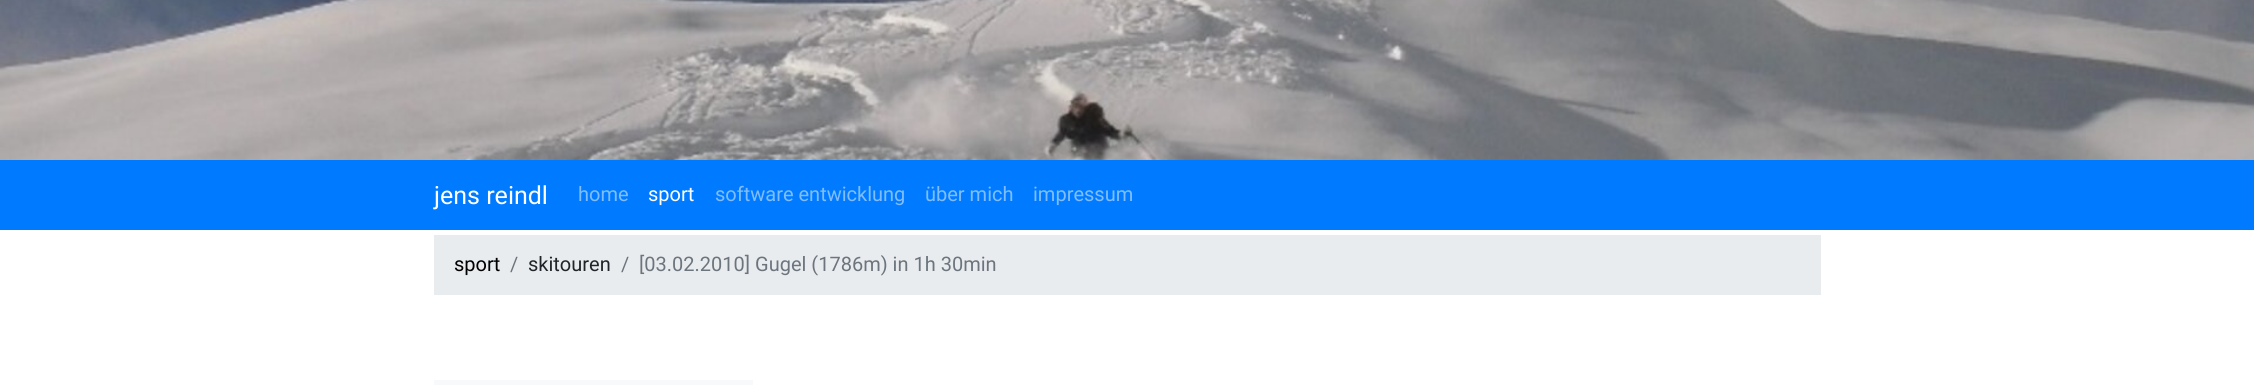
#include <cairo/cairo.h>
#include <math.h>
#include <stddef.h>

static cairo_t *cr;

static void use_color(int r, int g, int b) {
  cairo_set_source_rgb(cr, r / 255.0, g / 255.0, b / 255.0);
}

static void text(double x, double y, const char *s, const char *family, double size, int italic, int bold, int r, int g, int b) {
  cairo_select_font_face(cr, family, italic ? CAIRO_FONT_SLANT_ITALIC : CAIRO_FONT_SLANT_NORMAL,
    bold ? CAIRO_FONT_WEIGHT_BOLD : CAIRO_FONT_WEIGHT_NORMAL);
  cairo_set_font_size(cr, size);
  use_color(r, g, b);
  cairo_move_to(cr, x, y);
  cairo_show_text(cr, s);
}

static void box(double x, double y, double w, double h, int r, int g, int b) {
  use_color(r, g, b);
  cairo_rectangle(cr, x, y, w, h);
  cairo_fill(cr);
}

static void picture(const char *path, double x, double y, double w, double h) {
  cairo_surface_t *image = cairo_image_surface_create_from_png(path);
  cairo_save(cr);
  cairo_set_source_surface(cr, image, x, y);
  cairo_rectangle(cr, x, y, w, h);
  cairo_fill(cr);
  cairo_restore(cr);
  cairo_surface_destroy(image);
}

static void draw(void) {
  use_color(255, 255, 255);
  cairo_paint(cr);
  picture("img_01.png", 0, 0, 2254, 160);
  box(0, 160, 2254, 70, 0, 123, 255);
  box(434, 235, 1387, 60, 233, 236, 239);
  box(434, 380, 319, 5, 248, 249, 250);
  text(434, 204, "jens reindl", "Roboto", 25, 0, 0, 255, 255, 255);
  text(578, 201, "home", "Roboto", 20, 0, 0, 128, 189, 255);
  text(648, 201, "sport", "Roboto", 20, 0, 0, 255, 255, 255);
  text(715, 201, "software entwicklung", "Roboto", 20, 0, 0, 128, 189, 255);
  text(925, 201, "über mich", "Roboto", 20, 0, 0, 128, 189, 255);
  text(1033, 201, "impressum", "Roboto", 20, 0, 0, 128, 189, 255);
  text(454, 271, "sport", "Roboto", 20, 0, 0, 0, 0, 0);
  text(510, 271, "/", "Roboto", 20, 0, 0, 108, 117, 125);
  text(528, 271, "skitouren", "Roboto", 20, 0, 0, 33, 37, 41);
  text(621, 271, "/", "Roboto", 20, 0, 0, 108, 117, 125);
  text(639, 271, "[03.02.2010] Gugel (1786m) in 1h 30min", "Roboto", 20, 0, 0, 108, 117, 125);
}

int main(void) {
  cairo_surface_t *surface = cairo_image_surface_create(CAIRO_FORMAT_RGB24, 2254, 385);
  cr = cairo_create(surface);
  cairo_font_options_t *options = cairo_font_options_create();
  cairo_font_options_set_hint_metrics(options, CAIRO_HINT_METRICS_OFF);
  cairo_font_options_set_hint_style(options, CAIRO_HINT_STYLE_NONE);
  cairo_set_font_options(cr, options);
  cairo_set_miter_limit(cr, 4);
  draw();
  cairo_surface_write_to_png(surface, "out.png");
  cairo_font_options_destroy(options);
  cairo_destroy(cr);
  cairo_surface_destroy(surface);
  return 0;
}
